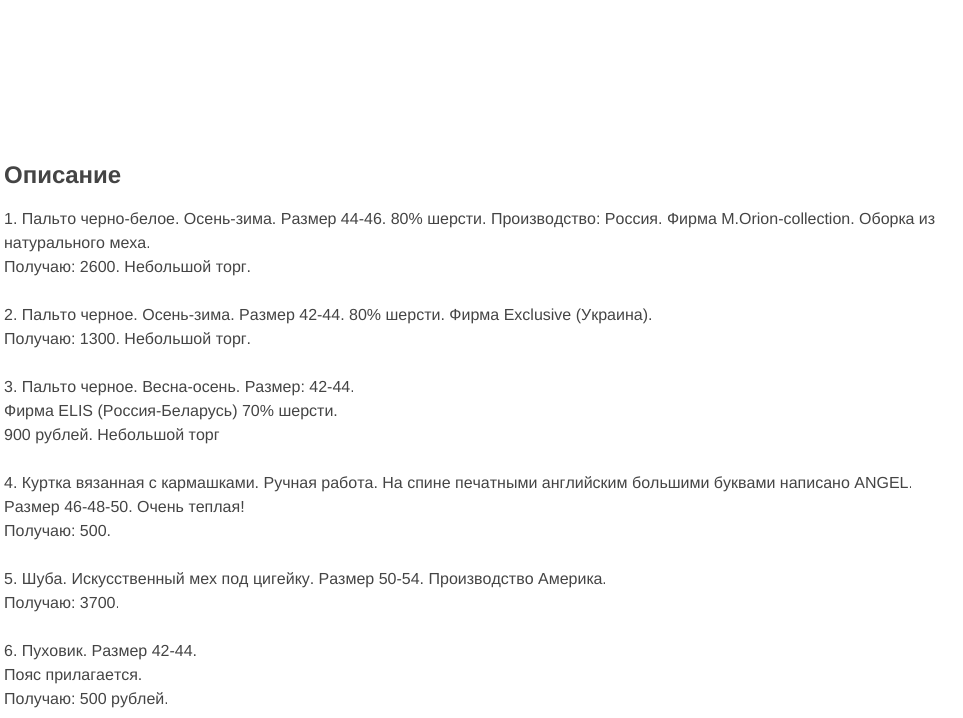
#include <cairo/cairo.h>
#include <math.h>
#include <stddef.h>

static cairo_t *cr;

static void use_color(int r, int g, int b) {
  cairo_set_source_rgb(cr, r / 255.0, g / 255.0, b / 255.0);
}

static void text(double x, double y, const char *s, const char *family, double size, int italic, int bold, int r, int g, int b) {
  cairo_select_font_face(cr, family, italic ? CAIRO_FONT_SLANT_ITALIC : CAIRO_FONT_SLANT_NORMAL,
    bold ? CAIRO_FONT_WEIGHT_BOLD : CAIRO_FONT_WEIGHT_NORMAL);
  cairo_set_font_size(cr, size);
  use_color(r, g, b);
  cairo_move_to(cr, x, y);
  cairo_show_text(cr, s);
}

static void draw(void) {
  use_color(255, 255, 255);
  cairo_paint(cr);
  text(4, 183, "Описание", "Liberation Sans", 24, 0, 1, 68, 68, 68);
  text(4, 224, "1. Пальто черно-белое. Осень-зима. Размер 44-46. 80% шерсти. Производство: Россия. Фирма M.Orion-collection. Оборка из", "Liberation Sans", 16, 0, 0, 68, 68, 68);
  text(4, 248, "натурального меха.", "Liberation Sans", 16, 0, 0, 68, 68, 68);
  text(4, 272, "Получаю: 2600. Небольшой торг.", "Liberation Sans", 16, 0, 0, 68, 68, 68);
  text(4, 320, "2. Пальто черное. Осень-зима. Размер 42-44. 80% шерсти. Фирма Exclusive (Украина).", "Liberation Sans", 16, 0, 0, 68, 68, 68);
  text(4, 344, "Получаю: 1300. Небольшой торг.", "Liberation Sans", 16, 0, 0, 68, 68, 68);
  text(4, 392, "3. Пальто черное. Весна-осень. Размер: 42-44.", "Liberation Sans", 16, 0, 0, 68, 68, 68);
  text(4, 416, "Фирма ELIS (Россия-Беларусь) 70% шерсти.", "Liberation Sans", 16, 0, 0, 68, 68, 68);
  text(4, 440, "900 рублей. Небольшой торг", "Liberation Sans", 16, 0, 0, 68, 68, 68);
  text(4, 488, "4. Куртка вязанная с кармашками. Ручная работа. На спине печатными английским большими буквами написано ANGEL.", "Liberation Sans", 16, 0, 0, 68, 68, 68);
  text(4, 512, "Размер 46-48-50. Очень теплая!", "Liberation Sans", 16, 0, 0, 68, 68, 68);
  text(4, 536, "Получаю: 500.", "Liberation Sans", 16, 0, 0, 68, 68, 68);
  text(4, 584, "5. Шуба. Искусственный мех под цигейку. Размер 50-54. Производство Америка.", "Liberation Sans", 16, 0, 0, 68, 68, 68);
  text(4, 608, "Получаю: 3700.", "Liberation Sans", 16, 0, 0, 68, 68, 68);
  text(4, 656, "6. Пуховик. Размер 42-44.", "Liberation Sans", 16, 0, 0, 68, 68, 68);
  text(4, 680, "Пояс прилагается.", "Liberation Sans", 16, 0, 0, 68, 68, 68);
  text(4, 704, "Получаю: 500 рублей.", "Liberation Sans", 16, 0, 0, 68, 68, 68);
}

int main(void) {
  cairo_surface_t *surface = cairo_image_surface_create(CAIRO_FORMAT_RGB24, 963, 718);
  cr = cairo_create(surface);
  cairo_font_options_t *options = cairo_font_options_create();
  cairo_font_options_set_hint_metrics(options, CAIRO_HINT_METRICS_OFF);
  cairo_font_options_set_hint_style(options, CAIRO_HINT_STYLE_NONE);
  cairo_set_font_options(cr, options);
  cairo_set_miter_limit(cr, 4);
  draw();
  cairo_surface_write_to_png(surface, "out.png");
  cairo_font_options_destroy(options);
  cairo_destroy(cr);
  cairo_surface_destroy(surface);
  return 0;
}
